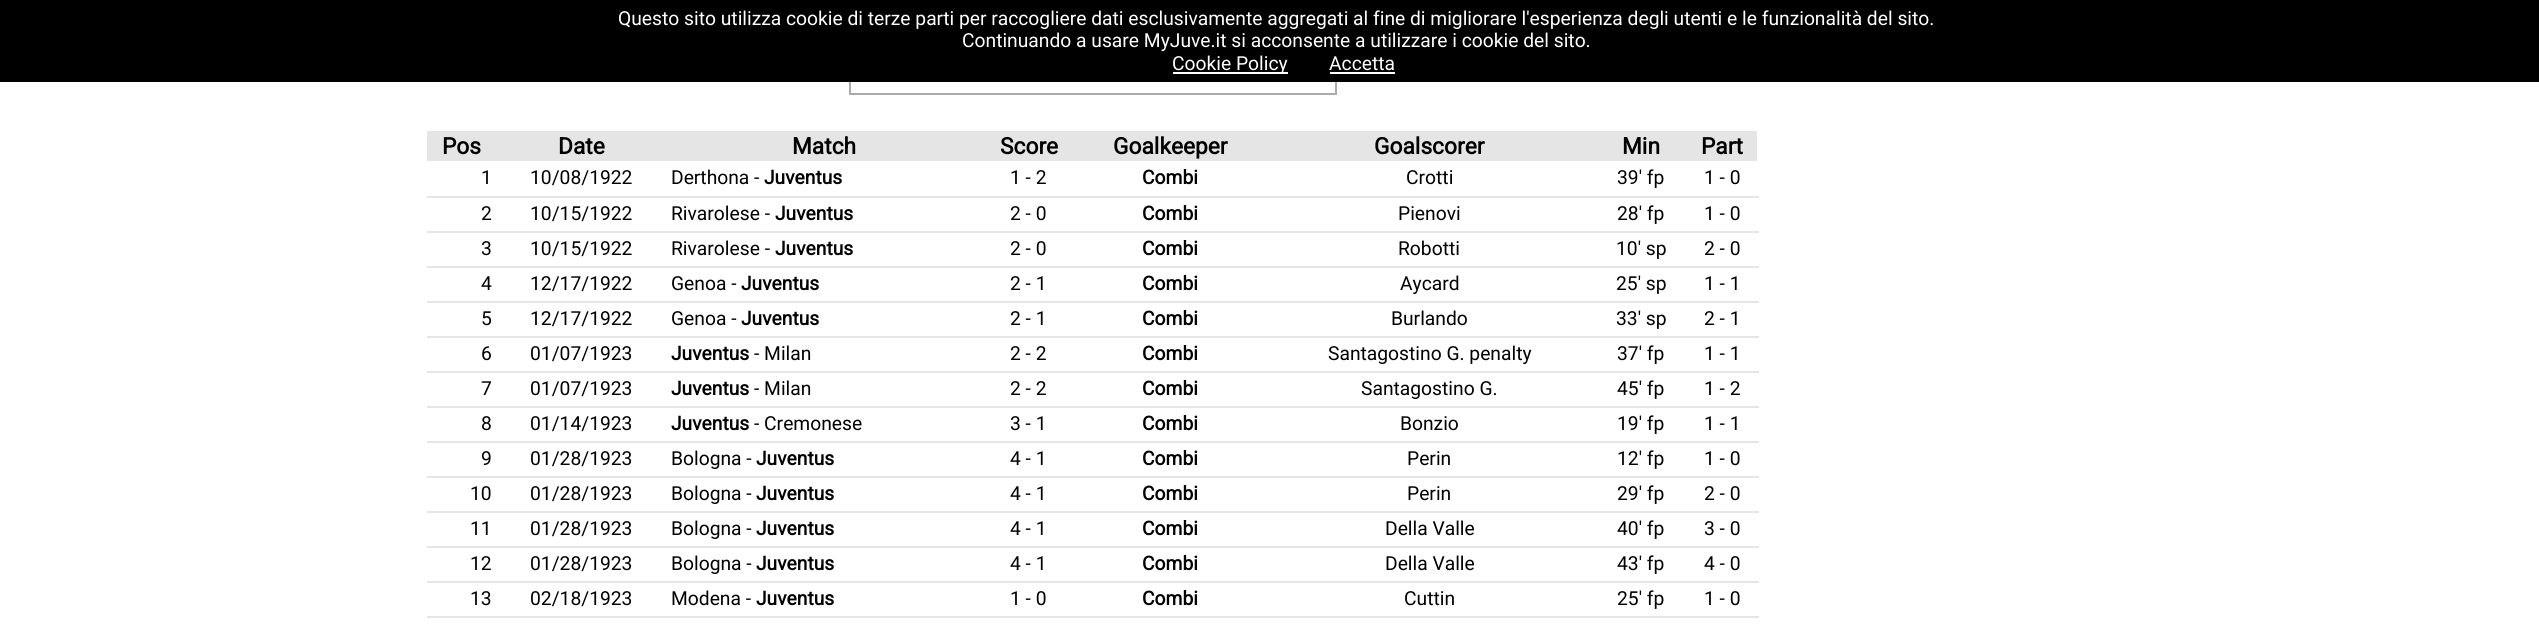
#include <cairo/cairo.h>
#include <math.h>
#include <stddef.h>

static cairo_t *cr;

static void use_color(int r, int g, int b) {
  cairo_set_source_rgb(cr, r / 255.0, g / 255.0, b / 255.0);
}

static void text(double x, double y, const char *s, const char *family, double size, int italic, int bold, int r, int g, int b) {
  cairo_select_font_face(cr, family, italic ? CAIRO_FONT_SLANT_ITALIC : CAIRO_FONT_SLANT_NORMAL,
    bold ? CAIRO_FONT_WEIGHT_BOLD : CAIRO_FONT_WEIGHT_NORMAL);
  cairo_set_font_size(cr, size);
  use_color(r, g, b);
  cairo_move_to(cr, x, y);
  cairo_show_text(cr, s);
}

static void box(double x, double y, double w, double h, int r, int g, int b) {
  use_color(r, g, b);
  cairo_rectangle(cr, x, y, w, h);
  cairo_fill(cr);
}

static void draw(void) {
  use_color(255, 255, 255);
  cairo_paint(cr);
  cairo_rectangle(cr, 850, 57, 486, 37);
  use_color(172, 170, 172);
  cairo_stroke(cr);
  box(0, 0, 2539, 82, 0, 0, 0);
  box(1173, 72, 115, 2, 255, 255, 255);
  box(1330, 72, 65, 2, 255, 255, 255);
  box(427, 131, 1330, 30, 229, 229, 229);
  box(427, 196, 1332, 2, 229, 229, 229);
  box(427, 231, 1332, 2, 229, 229, 229);
  box(427, 266, 1332, 2, 229, 229, 229);
  box(427, 301, 1332, 2, 229, 229, 229);
  box(427, 336, 1332, 2, 229, 229, 229);
  box(427, 371, 1332, 2, 229, 229, 229);
  box(427, 406, 1332, 2, 229, 229, 229);
  box(427, 441, 1332, 2, 229, 229, 229);
  box(427, 476, 1332, 2, 229, 229, 229);
  box(427, 511, 1332, 2, 229, 229, 229);
  box(427, 546, 1332, 2, 229, 229, 229);
  box(427, 581, 1332, 2, 229, 229, 229);
  box(427, 616, 1332, 2, 229, 229, 229);
  text(618, 25, "Questo sito utilizza cookie di terze parti per raccogliere dati esclusivamente aggregati al fine di migliorare l'esperienza degli utenti e le funzionalità del sito.", "Roboto", 19.25, 0, 0, 255, 255, 255);
  text(962, 47, "Continuando a usare MyJuve.it si acconsente a utilizzare i cookie del sito.", "Roboto", 19.25, 0, 0, 255, 255, 255);
  text(1172, 70, "Cookie Policy", "Roboto", 19.25, 0, 0, 255, 255, 255);
  text(1329, 70, "Accetta", "Roboto", 19.25, 0, 0, 255, 255, 255);
  text(442, 154, "Pos", "Roboto", 22.75, 0, 1, 0, 0, 0);
  text(558, 154, "Date", "Roboto", 22.75, 0, 1, 0, 0, 0);
  text(792, 154, "Match", "Roboto", 22.75, 0, 1, 0, 0, 0);
  text(1000, 154, "Score", "Roboto", 22.75, 0, 1, 0, 0, 0);
  text(1113, 154, "Goalkeeper", "Roboto", 22.75, 0, 1, 0, 0, 0);
  text(1374, 154, "Goalscorer", "Roboto", 22.75, 0, 1, 0, 0, 0);
  text(1622, 154, "Min", "Roboto", 22.75, 0, 1, 0, 0, 0);
  text(1701, 154, "Part", "Roboto", 22.75, 0, 1, 0, 0, 0);
  text(481, 184, "1", "Roboto", 19.25, 0, 0, 0, 0, 0);
  text(530, 184, "10/08/1922", "Roboto", 19.25, 0, 0, 0, 0, 0);
  text(671, 184, "Derthona -", "Roboto", 19.25, 0, 0, 0, 0, 0);
  text(764, 184, "Juventus", "Roboto", 19.25, 0, 1, 0, 0, 0);
  text(1010, 184, "1 - 2", "Roboto", 19.25, 0, 0, 0, 0, 0);
  text(1142, 184, "Combi", "Roboto", 19.25, 0, 1, 0, 0, 0);
  text(1406, 184, "Crotti", "Roboto", 19.25, 0, 0, 0, 0, 0);
  text(1617, 184, "39' fp", "Roboto", 19.25, 0, 0, 0, 0, 0);
  text(1704, 184, "1 - 0", "Roboto", 19.25, 0, 0, 0, 0, 0);
  text(481, 220, "2", "Roboto", 19.25, 0, 0, 0, 0, 0);
  text(530, 220, "10/15/1922", "Roboto", 19.25, 0, 0, 0, 0, 0);
  text(671, 220, "Rivarolese -", "Roboto", 19.25, 0, 0, 0, 0, 0);
  text(775, 220, "Juventus", "Roboto", 19.25, 0, 1, 0, 0, 0);
  text(1010, 220, "2 - 0", "Roboto", 19.25, 0, 0, 0, 0, 0);
  text(1142, 220, "Combi", "Roboto", 19.25, 0, 1, 0, 0, 0);
  text(1398, 220, "Pienovi", "Roboto", 19.25, 0, 0, 0, 0, 0);
  text(1617, 220, "28' fp", "Roboto", 19.25, 0, 0, 0, 0, 0);
  text(1704, 220, "1 - 0", "Roboto", 19.25, 0, 0, 0, 0, 0);
  text(481, 255, "3", "Roboto", 19.25, 0, 0, 0, 0, 0);
  text(530, 255, "10/15/1922", "Roboto", 19.25, 0, 0, 0, 0, 0);
  text(671, 255, "Rivarolese -", "Roboto", 19.25, 0, 0, 0, 0, 0);
  text(775, 255, "Juventus", "Roboto", 19.25, 0, 1, 0, 0, 0);
  text(1010, 255, "2 - 0", "Roboto", 19.25, 0, 0, 0, 0, 0);
  text(1142, 255, "Combi", "Roboto", 19.25, 0, 1, 0, 0, 0);
  text(1398, 255, "Robotti", "Roboto", 19.25, 0, 0, 0, 0, 0);
  text(1616, 255, "10' sp", "Roboto", 19.25, 0, 0, 0, 0, 0);
  text(1704, 255, "2 - 0", "Roboto", 19.25, 0, 0, 0, 0, 0);
  text(481, 290, "4", "Roboto", 19.25, 0, 0, 0, 0, 0);
  text(530, 290, "12/17/1922", "Roboto", 19.25, 0, 0, 0, 0, 0);
  text(671, 290, "Genoa -", "Roboto", 19.25, 0, 0, 0, 0, 0);
  text(741, 290, "Juventus", "Roboto", 19.25, 0, 1, 0, 0, 0);
  text(1010, 290, "2 - 1", "Roboto", 19.25, 0, 0, 0, 0, 0);
  text(1142, 290, "Combi", "Roboto", 19.25, 0, 1, 0, 0, 0);
  text(1400, 290, "Aycard", "Roboto", 19.25, 0, 0, 0, 0, 0);
  text(1616, 290, "25' sp", "Roboto", 19.25, 0, 0, 0, 0, 0);
  text(1704, 290, "1 - 1", "Roboto", 19.25, 0, 0, 0, 0, 0);
  text(481, 325, "5", "Roboto", 19.25, 0, 0, 0, 0, 0);
  text(530, 325, "12/17/1922", "Roboto", 19.25, 0, 0, 0, 0, 0);
  text(671, 325, "Genoa -", "Roboto", 19.25, 0, 0, 0, 0, 0);
  text(741, 325, "Juventus", "Roboto", 19.25, 0, 1, 0, 0, 0);
  text(1010, 325, "2 - 1", "Roboto", 19.25, 0, 0, 0, 0, 0);
  text(1142, 325, "Combi", "Roboto", 19.25, 0, 1, 0, 0, 0);
  text(1391, 325, "Burlando", "Roboto", 19.25, 0, 0, 0, 0, 0);
  text(1616, 325, "33' sp", "Roboto", 19.25, 0, 0, 0, 0, 0);
  text(1704, 325, "2 - 1", "Roboto", 19.25, 0, 0, 0, 0, 0);
  text(481, 360, "6", "Roboto", 19.25, 0, 0, 0, 0, 0);
  text(530, 360, "01/07/1923", "Roboto", 19.25, 0, 0, 0, 0, 0);
  text(671, 360, "Juventus", "Roboto", 19.25, 0, 1, 0, 0, 0);
  text(754, 360, "- Milan", "Roboto", 19.25, 0, 0, 0, 0, 0);
  text(1010, 360, "2 - 2", "Roboto", 19.25, 0, 0, 0, 0, 0);
  text(1142, 360, "Combi", "Roboto", 19.25, 0, 1, 0, 0, 0);
  text(1328, 360, "Santagostino G. penalty", "Roboto", 19.25, 0, 0, 0, 0, 0);
  text(1617, 360, "37' fp", "Roboto", 19.25, 0, 0, 0, 0, 0);
  text(1704, 360, "1 - 1", "Roboto", 19.25, 0, 0, 0, 0, 0);
  text(481, 395, "7", "Roboto", 19.25, 0, 0, 0, 0, 0);
  text(530, 395, "01/07/1923", "Roboto", 19.25, 0, 0, 0, 0, 0);
  text(671, 395, "Juventus", "Roboto", 19.25, 0, 1, 0, 0, 0);
  text(754, 395, "- Milan", "Roboto", 19.25, 0, 0, 0, 0, 0);
  text(1010, 395, "2 - 2", "Roboto", 19.25, 0, 0, 0, 0, 0);
  text(1142, 395, "Combi", "Roboto", 19.25, 0, 1, 0, 0, 0);
  text(1361, 395, "Santagostino G.", "Roboto", 19.25, 0, 0, 0, 0, 0);
  text(1617, 395, "45' fp", "Roboto", 19.25, 0, 0, 0, 0, 0);
  text(1704, 395, "1 - 2", "Roboto", 19.25, 0, 0, 0, 0, 0);
  text(481, 430, "8", "Roboto", 19.25, 0, 0, 0, 0, 0);
  text(530, 430, "01/14/1923", "Roboto", 19.25, 0, 0, 0, 0, 0);
  text(671, 430, "Juventus", "Roboto", 19.25, 0, 1, 0, 0, 0);
  text(754, 430, "- Cremonese", "Roboto", 19.25, 0, 0, 0, 0, 0);
  text(1010, 430, "3 - 1", "Roboto", 19.25, 0, 0, 0, 0, 0);
  text(1142, 430, "Combi", "Roboto", 19.25, 0, 1, 0, 0, 0);
  text(1400, 430, "Bonzio", "Roboto", 19.25, 0, 0, 0, 0, 0);
  text(1617, 430, "19' fp", "Roboto", 19.25, 0, 0, 0, 0, 0);
  text(1704, 430, "1 - 1", "Roboto", 19.25, 0, 0, 0, 0, 0);
  text(481, 465, "9", "Roboto", 19.25, 0, 0, 0, 0, 0);
  text(530, 465, "01/28/1923", "Roboto", 19.25, 0, 0, 0, 0, 0);
  text(671, 465, "Bologna -", "Roboto", 19.25, 0, 0, 0, 0, 0);
  text(756, 465, "Juventus", "Roboto", 19.25, 0, 1, 0, 0, 0);
  text(1010, 465, "4 - 1", "Roboto", 19.25, 0, 0, 0, 0, 0);
  text(1142, 465, "Combi", "Roboto", 19.25, 0, 1, 0, 0, 0);
  text(1407, 465, "Perin", "Roboto", 19.25, 0, 0, 0, 0, 0);
  text(1617, 465, "12' fp", "Roboto", 19.25, 0, 0, 0, 0, 0);
  text(1704, 465, "1 - 0", "Roboto", 19.25, 0, 0, 0, 0, 0);
  text(470, 500, "10", "Roboto", 19.25, 0, 0, 0, 0, 0);
  text(530, 500, "01/28/1923", "Roboto", 19.25, 0, 0, 0, 0, 0);
  text(671, 500, "Bologna -", "Roboto", 19.25, 0, 0, 0, 0, 0);
  text(756, 500, "Juventus", "Roboto", 19.25, 0, 1, 0, 0, 0);
  text(1010, 500, "4 - 1", "Roboto", 19.25, 0, 0, 0, 0, 0);
  text(1142, 500, "Combi", "Roboto", 19.25, 0, 1, 0, 0, 0);
  text(1407, 500, "Perin", "Roboto", 19.25, 0, 0, 0, 0, 0);
  text(1617, 500, "29' fp", "Roboto", 19.25, 0, 0, 0, 0, 0);
  text(1704, 500, "2 - 0", "Roboto", 19.25, 0, 0, 0, 0, 0);
  text(470, 535, "11", "Roboto", 19.25, 0, 0, 0, 0, 0);
  text(530, 535, "01/28/1923", "Roboto", 19.25, 0, 0, 0, 0, 0);
  text(671, 535, "Bologna -", "Roboto", 19.25, 0, 0, 0, 0, 0);
  text(756, 535, "Juventus", "Roboto", 19.25, 0, 1, 0, 0, 0);
  text(1010, 535, "4 - 1", "Roboto", 19.25, 0, 0, 0, 0, 0);
  text(1142, 535, "Combi", "Roboto", 19.25, 0, 1, 0, 0, 0);
  text(1385, 535, "Della Valle", "Roboto", 19.25, 0, 0, 0, 0, 0);
  text(1617, 535, "40' fp", "Roboto", 19.25, 0, 0, 0, 0, 0);
  text(1704, 535, "3 - 0", "Roboto", 19.25, 0, 0, 0, 0, 0);
  text(470, 570, "12", "Roboto", 19.25, 0, 0, 0, 0, 0);
  text(530, 570, "01/28/1923", "Roboto", 19.25, 0, 0, 0, 0, 0);
  text(671, 570, "Bologna -", "Roboto", 19.25, 0, 0, 0, 0, 0);
  text(756, 570, "Juventus", "Roboto", 19.25, 0, 1, 0, 0, 0);
  text(1010, 570, "4 - 1", "Roboto", 19.25, 0, 0, 0, 0, 0);
  text(1142, 570, "Combi", "Roboto", 19.25, 0, 1, 0, 0, 0);
  text(1385, 570, "Della Valle", "Roboto", 19.25, 0, 0, 0, 0, 0);
  text(1617, 570, "43' fp", "Roboto", 19.25, 0, 0, 0, 0, 0);
  text(1704, 570, "4 - 0", "Roboto", 19.25, 0, 0, 0, 0, 0);
  text(470, 605, "13", "Roboto", 19.25, 0, 0, 0, 0, 0);
  text(530, 605, "02/18/1923", "Roboto", 19.25, 0, 0, 0, 0, 0);
  text(671, 605, "Modena -", "Roboto", 19.25, 0, 0, 0, 0, 0);
  text(756, 605, "Juventus", "Roboto", 19.25, 0, 1, 0, 0, 0);
  text(1010, 605, "1 - 0", "Roboto", 19.25, 0, 0, 0, 0, 0);
  text(1142, 605, "Combi", "Roboto", 19.25, 0, 1, 0, 0, 0);
  text(1404, 605, "Cuttin", "Roboto", 19.25, 0, 0, 0, 0, 0);
  text(1617, 605, "25' fp", "Roboto", 19.25, 0, 0, 0, 0, 0);
  text(1704, 605, "1 - 0", "Roboto", 19.25, 0, 0, 0, 0, 0);
}

int main(void) {
  cairo_surface_t *surface = cairo_image_surface_create(CAIRO_FORMAT_RGB24, 2539, 627);
  cr = cairo_create(surface);
  cairo_font_options_t *options = cairo_font_options_create();
  cairo_font_options_set_hint_metrics(options, CAIRO_HINT_METRICS_OFF);
  cairo_font_options_set_hint_style(options, CAIRO_HINT_STYLE_NONE);
  cairo_set_font_options(cr, options);
  cairo_set_miter_limit(cr, 4);
  draw();
  cairo_surface_write_to_png(surface, "out.png");
  cairo_font_options_destroy(options);
  cairo_destroy(cr);
  cairo_surface_destroy(surface);
  return 0;
}
